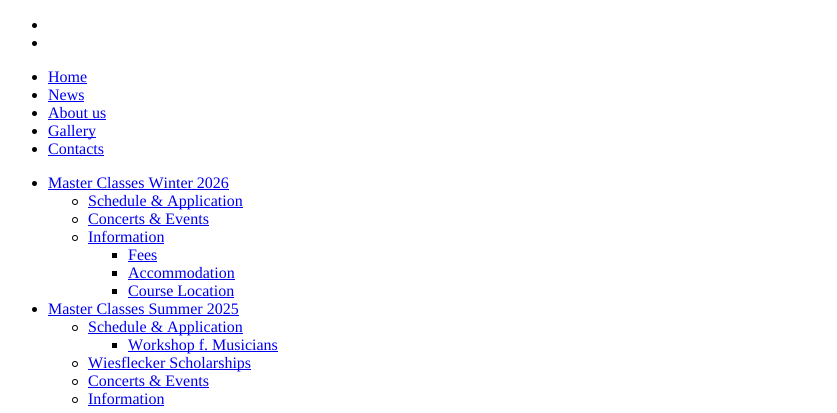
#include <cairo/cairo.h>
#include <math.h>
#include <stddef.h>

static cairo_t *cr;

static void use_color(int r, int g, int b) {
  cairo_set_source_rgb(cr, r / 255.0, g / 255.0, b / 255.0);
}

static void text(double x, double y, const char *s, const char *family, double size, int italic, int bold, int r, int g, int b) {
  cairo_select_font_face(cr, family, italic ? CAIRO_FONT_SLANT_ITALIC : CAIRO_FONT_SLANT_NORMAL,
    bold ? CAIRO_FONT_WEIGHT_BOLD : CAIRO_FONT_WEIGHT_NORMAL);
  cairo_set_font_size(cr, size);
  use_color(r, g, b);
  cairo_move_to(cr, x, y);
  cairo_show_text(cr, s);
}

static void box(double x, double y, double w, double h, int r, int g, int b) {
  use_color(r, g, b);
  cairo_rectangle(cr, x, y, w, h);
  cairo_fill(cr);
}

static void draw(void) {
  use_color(255, 255, 255);
  cairo_paint(cr);
  use_color(0, 0, 0);
  cairo_arc(cr, 34.5, 25.5, 2.5, 0, 2 * M_PI);
  cairo_fill(cr);
  cairo_arc(cr, 34.5, 43.5, 2.5, 0, 2 * M_PI);
  cairo_fill(cr);
  cairo_arc(cr, 34.5, 77.5, 2.5, 0, 2 * M_PI);
  cairo_fill(cr);
  box(48, 83, 39, 1, 0, 0, 238);
  use_color(0, 0, 0);
  cairo_arc(cr, 34.5, 95.5, 2.5, 0, 2 * M_PI);
  cairo_fill(cr);
  box(48, 101, 36, 1, 0, 0, 238);
  use_color(0, 0, 0);
  cairo_arc(cr, 34.5, 113.5, 2.5, 0, 2 * M_PI);
  cairo_fill(cr);
  box(48, 119, 58, 1, 0, 0, 238);
  use_color(0, 0, 0);
  cairo_arc(cr, 34.5, 131.5, 2.5, 0, 2 * M_PI);
  cairo_fill(cr);
  box(48, 137, 48, 1, 0, 0, 238);
  use_color(0, 0, 0);
  cairo_arc(cr, 34.5, 149.5, 2.5, 0, 2 * M_PI);
  cairo_fill(cr);
  box(48, 155, 56, 1, 0, 0, 238);
  use_color(0, 0, 0);
  cairo_arc(cr, 34.5, 183.5, 2.5, 0, 2 * M_PI);
  cairo_fill(cr);
  box(48, 189, 181, 1, 0, 0, 238);
  cairo_arc(cr, 75, 202, 2.5, 0, 2 * M_PI);
  use_color(0, 0, 0);
  cairo_set_line_width(cr, 1);
  cairo_stroke(cr);
  box(88, 207, 155, 1, 0, 0, 238);
  cairo_arc(cr, 75, 220, 2.5, 0, 2 * M_PI);
  use_color(0, 0, 0);
  cairo_stroke(cr);
  box(88, 225, 121, 1, 0, 0, 238);
  cairo_arc(cr, 75, 238, 2.5, 0, 2 * M_PI);
  use_color(0, 0, 0);
  cairo_stroke(cr);
  box(88, 243, 76, 1, 0, 0, 238);
  box(112, 253, 5, 5, 0, 0, 0);
  box(128, 261, 29, 1, 0, 0, 238);
  box(112, 271, 5, 5, 0, 0, 0);
  box(128, 279, 107, 1, 0, 0, 238);
  box(112, 289, 5, 5, 0, 0, 0);
  box(128, 297, 106, 1, 0, 0, 238);
  use_color(0, 0, 0);
  cairo_arc(cr, 34.5, 309.5, 2.5, 0, 2 * M_PI);
  cairo_fill(cr);
  box(48, 315, 191, 1, 0, 0, 238);
  cairo_arc(cr, 75, 328, 2.5, 0, 2 * M_PI);
  use_color(0, 0, 0);
  cairo_stroke(cr);
  box(88, 333, 155, 1, 0, 0, 238);
  box(112, 343, 5, 5, 0, 0, 0);
  box(128, 351, 150, 1, 0, 0, 238);
  cairo_arc(cr, 75, 364, 2.5, 0, 2 * M_PI);
  use_color(0, 0, 0);
  cairo_stroke(cr);
  box(88, 369, 163, 1, 0, 0, 238);
  cairo_arc(cr, 75, 382, 2.5, 0, 2 * M_PI);
  use_color(0, 0, 0);
  cairo_stroke(cr);
  box(88, 387, 121, 1, 0, 0, 238);
  cairo_arc(cr, 75, 400, 2.5, 0, 2 * M_PI);
  use_color(0, 0, 0);
  cairo_stroke(cr);
  box(88, 405, 76, 1, 0, 0, 238);
  text(48, 82, "Home", "Liberation Serif", 16, 0, 0, 0, 0, 238);
  text(48, 100, "News", "Liberation Serif", 16, 0, 0, 0, 0, 238);
  text(48, 118, "About us", "Liberation Serif", 16, 0, 0, 0, 0, 238);
  text(48, 136, "Gallery", "Liberation Serif", 16, 0, 0, 0, 0, 238);
  text(48, 154, "Contacts", "Liberation Serif", 16, 0, 0, 0, 0, 238);
  text(48, 188, "Master Classes Winter 2026", "Liberation Serif", 16, 0, 0, 0, 0, 238);
  text(88, 206, "Schedule & Application", "Liberation Serif", 16, 0, 0, 0, 0, 238);
  text(88, 224, "Concerts & Events", "Liberation Serif", 16, 0, 0, 0, 0, 238);
  text(88, 242, "Information", "Liberation Serif", 16, 0, 0, 0, 0, 238);
  text(128, 260, "Fees", "Liberation Serif", 16, 0, 0, 0, 0, 238);
  text(128, 278, "Accommodation", "Liberation Serif", 16, 0, 0, 0, 0, 238);
  text(128, 296, "Course Location", "Liberation Serif", 16, 0, 0, 0, 0, 238);
  text(48, 314, "Master Classes Summer 2025", "Liberation Serif", 16, 0, 0, 0, 0, 238);
  text(88, 332, "Schedule & Application", "Liberation Serif", 16, 0, 0, 0, 0, 238);
  text(128, 350, "Workshop f. Musicians", "Liberation Serif", 16, 0, 0, 0, 0, 238);
  text(88, 368, "Wiesflecker Scholarships", "Liberation Serif", 16, 0, 0, 0, 0, 238);
  text(88, 386, "Concerts & Events", "Liberation Serif", 16, 0, 0, 0, 0, 238);
  text(88, 404, "Information", "Liberation Serif", 16, 0, 0, 0, 0, 238);
}

int main(void) {
  cairo_surface_t *surface = cairo_image_surface_create(CAIRO_FORMAT_RGB24, 837, 413);
  cr = cairo_create(surface);
  cairo_font_options_t *options = cairo_font_options_create();
  cairo_font_options_set_hint_metrics(options, CAIRO_HINT_METRICS_OFF);
  cairo_font_options_set_hint_style(options, CAIRO_HINT_STYLE_NONE);
  cairo_set_font_options(cr, options);
  cairo_set_miter_limit(cr, 4);
  draw();
  cairo_surface_write_to_png(surface, "out.png");
  cairo_font_options_destroy(options);
  cairo_destroy(cr);
  cairo_surface_destroy(surface);
  return 0;
}
